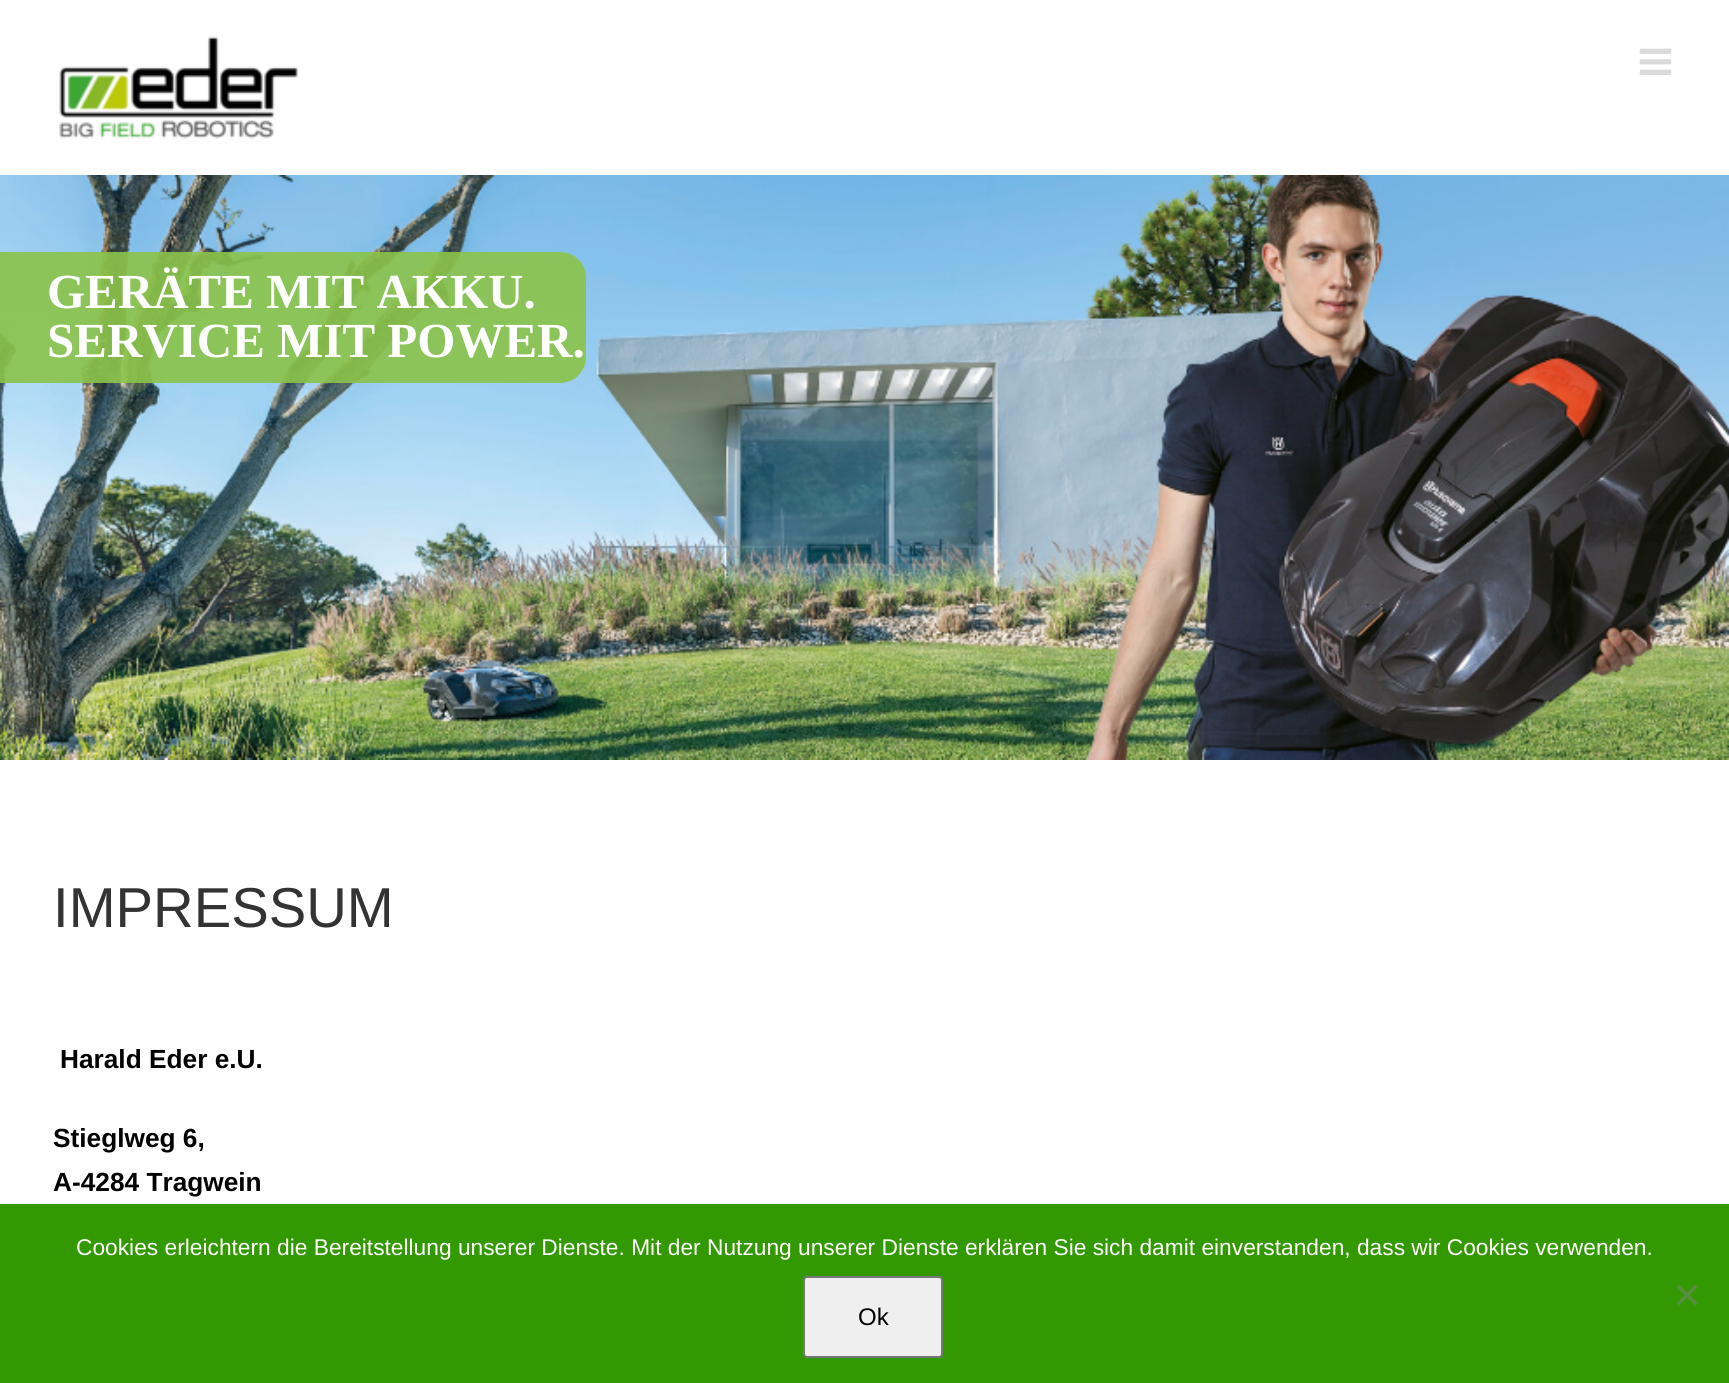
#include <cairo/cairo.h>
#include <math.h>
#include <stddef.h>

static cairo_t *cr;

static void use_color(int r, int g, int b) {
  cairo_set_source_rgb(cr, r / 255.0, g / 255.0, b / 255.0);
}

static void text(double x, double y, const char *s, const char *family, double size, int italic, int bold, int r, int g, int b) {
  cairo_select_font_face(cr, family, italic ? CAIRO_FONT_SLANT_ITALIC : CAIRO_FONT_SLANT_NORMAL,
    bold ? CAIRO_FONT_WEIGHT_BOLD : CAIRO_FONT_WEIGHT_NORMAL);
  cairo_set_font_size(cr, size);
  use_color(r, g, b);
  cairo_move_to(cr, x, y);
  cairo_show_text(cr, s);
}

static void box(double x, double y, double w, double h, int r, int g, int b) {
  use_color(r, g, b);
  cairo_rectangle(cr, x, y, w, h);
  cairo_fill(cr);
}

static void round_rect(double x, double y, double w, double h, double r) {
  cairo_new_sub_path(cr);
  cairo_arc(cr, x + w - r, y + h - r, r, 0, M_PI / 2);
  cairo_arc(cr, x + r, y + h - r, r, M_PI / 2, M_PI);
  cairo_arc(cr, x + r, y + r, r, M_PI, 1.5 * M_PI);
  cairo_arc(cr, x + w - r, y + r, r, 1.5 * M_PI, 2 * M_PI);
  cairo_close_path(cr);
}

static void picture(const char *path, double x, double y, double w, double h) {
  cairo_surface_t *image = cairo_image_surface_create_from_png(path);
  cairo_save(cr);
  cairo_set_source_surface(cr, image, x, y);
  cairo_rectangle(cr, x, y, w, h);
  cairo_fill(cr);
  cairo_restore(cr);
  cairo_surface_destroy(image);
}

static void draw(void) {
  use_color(255, 255, 255);
  cairo_paint(cr);
  picture("img_01.png", 59, 36, 239, 103);
  picture("img_02.png", 1639, 48, 33, 27);
  picture("img_03.png", 0, 175, 1729, 585);
  cairo_set_source_rgba(cr, 0.545, 0.765, 0.29, 0.9);
  cairo_new_path(cr);
  cairo_move_to(cr, 0, 252);
  cairo_line_to(cr, 560, 252);
  cairo_curve_to(cr, 574.5, 252, 586, 263.5, 586, 278);
  cairo_line_to(cr, 586, 357);
  cairo_curve_to(cr, 586, 371.5, 574.5, 383, 560, 383);
  cairo_line_to(cr, 0, 383);
  cairo_close_path(cr);
  cairo_fill(cr);
  box(0, 1204, 1729, 179, 51, 153, 0);
  use_color(90, 141, 64);
  cairo_new_path(cr);
  cairo_move_to(cr, 1695, 1284.5);
  cairo_line_to(cr, 1697.5, 1287);
  cairo_line_to(cr, 1679, 1305.5);
  cairo_line_to(cr, 1676.5, 1303);
  cairo_close_path(cr);
  cairo_fill(cr);
  cairo_new_path(cr);
  cairo_move_to(cr, 1676.5, 1287);
  cairo_line_to(cr, 1679, 1284.5);
  cairo_line_to(cr, 1697.5, 1303);
  cairo_line_to(cr, 1695, 1305.5);
  cairo_close_path(cr);
  cairo_fill(cr);
  use_color(239, 239, 239);
  round_rect(804, 1277, 138, 80, 3);
  cairo_fill_preserve(cr);
  use_color(118, 118, 118);
  cairo_stroke(cr);
  text(47, 308, "GERÄTE MIT AKKU.", "Liberation Serif", 49, 0, 1, 255, 255, 255);
  text(47, 357, "SERVICE MIT POWER.", "Liberation Serif", 49, 0, 1, 255, 255, 255);
  text(53, 927, "IMPRESSUM", "Liberation Sans", 56.25, 0, 0, 51, 51, 51);
  text(60, 1068, "Harald Eder e.U.", "Liberation Sans", 26.25, 0, 1, 0, 0, 0);
  text(53, 1147, "Stieglweg 6,", "Liberation Sans", 26.25, 0, 1, 0, 0, 0);
  text(53, 1191, "A-4284 Tragwein", "Liberation Sans", 26.25, 0, 1, 0, 0, 0);
  text(76, 1255, "Cookies erleichtern die Bereitstellung unserer Dienste. Mit der Nutzung unserer Dienste erklären Sie sich damit einverstanden, dass wir Cookies verwenden.", "Liberation Sans", 22.75, 0, 0, 255, 255, 255);
  text(858, 1325, "Ok", "Liberation Sans", 24, 0, 0, 0, 0, 0);
}

int main(void) {
  cairo_surface_t *surface = cairo_image_surface_create(CAIRO_FORMAT_RGB24, 1729, 1383);
  cr = cairo_create(surface);
  cairo_font_options_t *options = cairo_font_options_create();
  cairo_font_options_set_hint_metrics(options, CAIRO_HINT_METRICS_OFF);
  cairo_font_options_set_hint_style(options, CAIRO_HINT_STYLE_NONE);
  cairo_set_font_options(cr, options);
  cairo_set_miter_limit(cr, 4);
  draw();
  cairo_surface_write_to_png(surface, "out.png");
  cairo_font_options_destroy(options);
  cairo_destroy(cr);
  cairo_surface_destroy(surface);
  return 0;
}
